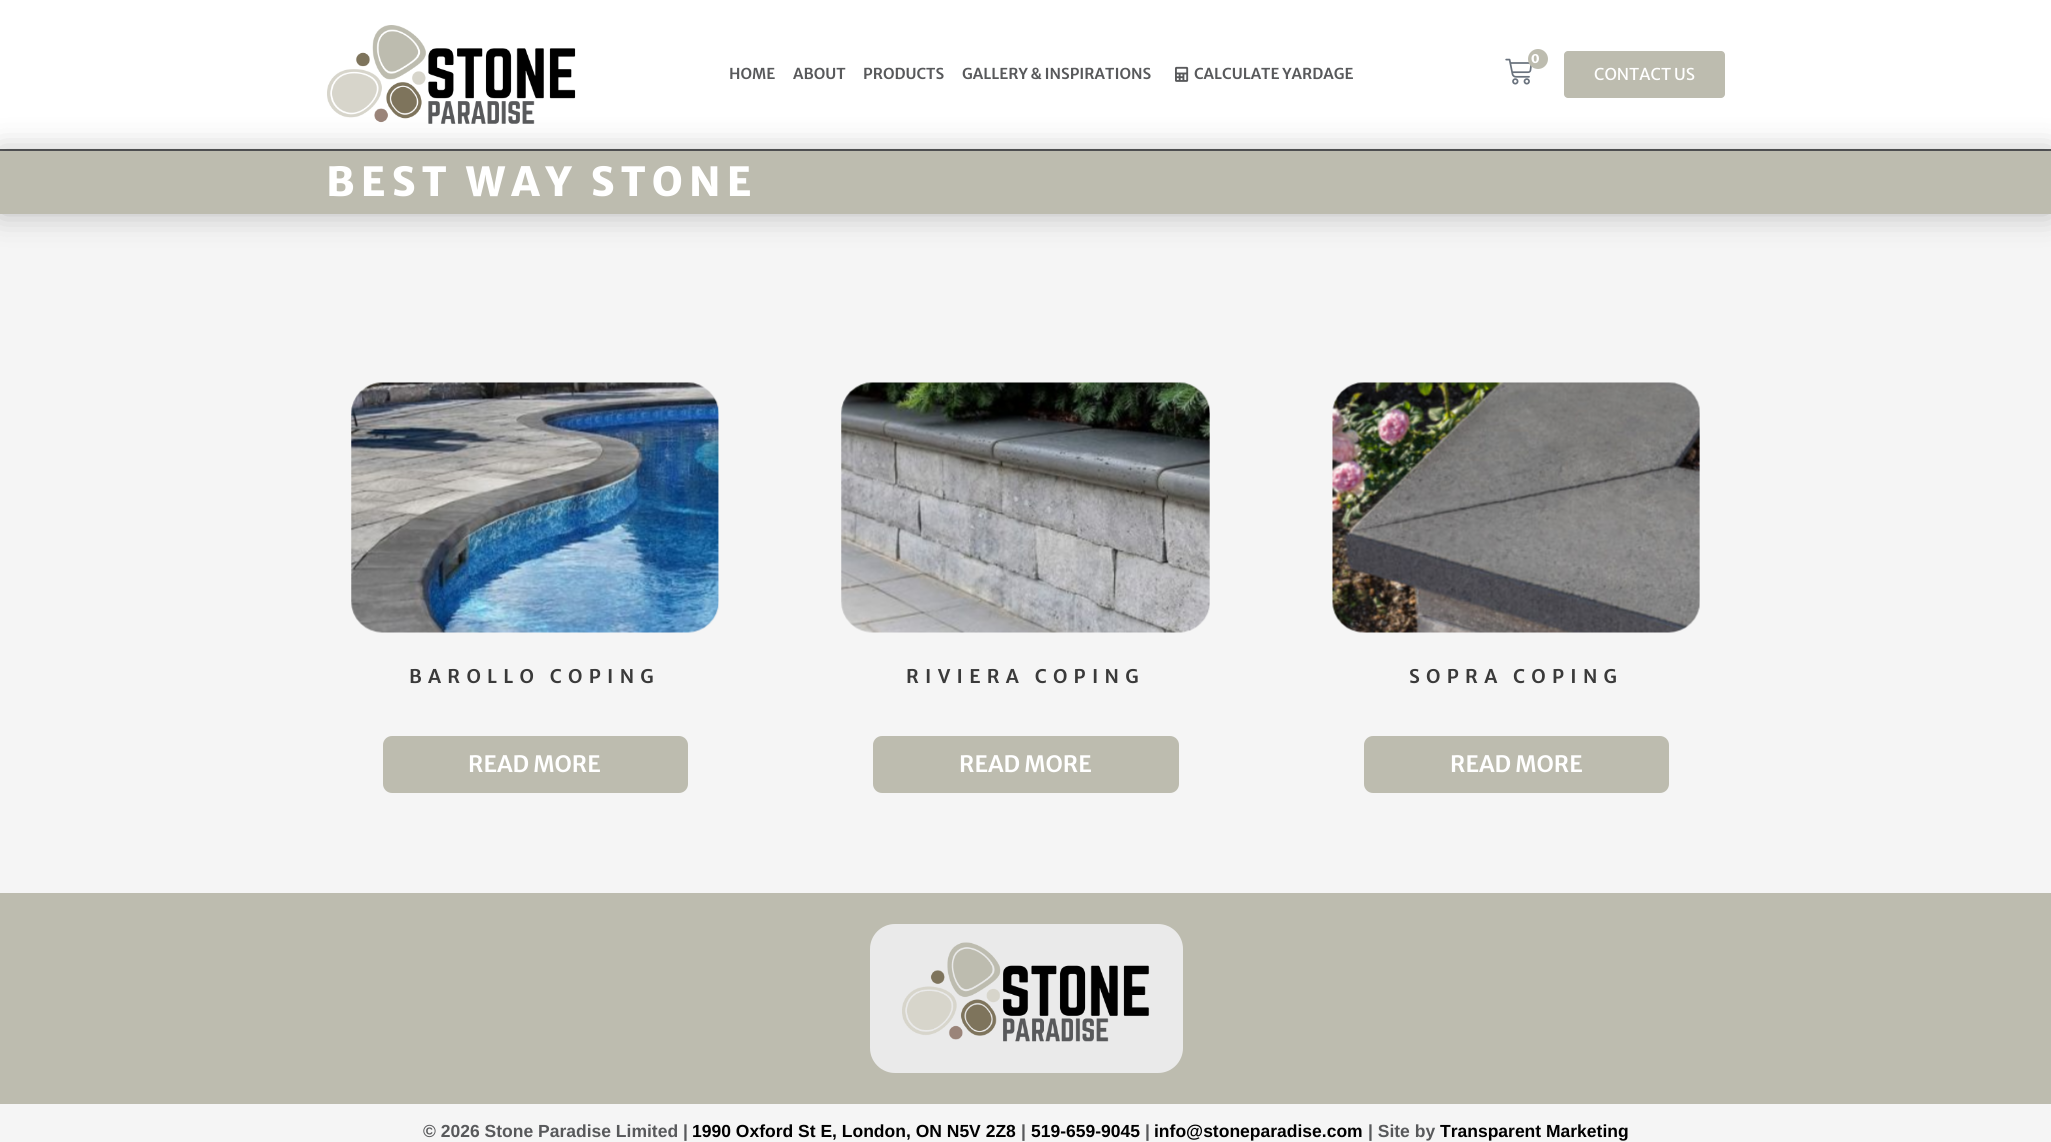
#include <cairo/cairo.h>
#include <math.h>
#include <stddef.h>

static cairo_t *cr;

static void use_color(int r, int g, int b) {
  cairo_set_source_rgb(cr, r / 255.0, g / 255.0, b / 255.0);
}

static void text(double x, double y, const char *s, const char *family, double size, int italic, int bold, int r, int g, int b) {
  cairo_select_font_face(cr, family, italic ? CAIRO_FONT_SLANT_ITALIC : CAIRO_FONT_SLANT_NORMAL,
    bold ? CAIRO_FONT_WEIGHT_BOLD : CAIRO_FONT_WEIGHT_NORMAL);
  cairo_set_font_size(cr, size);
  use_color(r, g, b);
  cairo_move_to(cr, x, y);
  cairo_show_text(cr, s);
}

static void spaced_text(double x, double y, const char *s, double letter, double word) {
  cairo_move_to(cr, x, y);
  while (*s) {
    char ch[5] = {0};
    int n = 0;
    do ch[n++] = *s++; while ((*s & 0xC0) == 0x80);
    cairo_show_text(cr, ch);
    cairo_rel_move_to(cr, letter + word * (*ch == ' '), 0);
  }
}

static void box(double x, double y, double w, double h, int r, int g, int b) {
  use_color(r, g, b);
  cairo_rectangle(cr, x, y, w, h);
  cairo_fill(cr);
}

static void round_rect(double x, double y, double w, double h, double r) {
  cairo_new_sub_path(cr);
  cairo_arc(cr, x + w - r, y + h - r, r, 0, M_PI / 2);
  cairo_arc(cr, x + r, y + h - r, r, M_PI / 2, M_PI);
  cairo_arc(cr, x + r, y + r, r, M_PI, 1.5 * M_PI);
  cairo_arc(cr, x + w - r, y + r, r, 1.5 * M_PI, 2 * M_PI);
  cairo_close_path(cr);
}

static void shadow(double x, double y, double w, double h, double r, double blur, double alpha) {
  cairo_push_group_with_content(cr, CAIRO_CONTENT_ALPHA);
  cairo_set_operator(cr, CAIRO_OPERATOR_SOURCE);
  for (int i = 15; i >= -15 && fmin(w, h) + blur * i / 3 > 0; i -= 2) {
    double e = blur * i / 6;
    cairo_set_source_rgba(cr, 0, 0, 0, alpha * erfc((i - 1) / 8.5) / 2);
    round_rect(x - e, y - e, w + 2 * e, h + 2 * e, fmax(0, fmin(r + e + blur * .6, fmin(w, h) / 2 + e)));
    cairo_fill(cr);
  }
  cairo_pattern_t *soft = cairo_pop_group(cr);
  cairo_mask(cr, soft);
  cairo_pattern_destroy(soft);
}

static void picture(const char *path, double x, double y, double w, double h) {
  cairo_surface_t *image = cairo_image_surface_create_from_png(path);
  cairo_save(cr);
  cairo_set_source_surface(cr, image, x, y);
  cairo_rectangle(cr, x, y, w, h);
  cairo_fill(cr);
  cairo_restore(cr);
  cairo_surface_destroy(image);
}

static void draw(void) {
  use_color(245, 245, 245);
  cairo_paint(cr);
  box(0, 0, 2051, 149, 255, 255, 255);
  box(0, 149, 2051, 2, 88, 89, 91);
  picture("img_01.png", 327, 25, 249, 99);
  picture("img_02.png", 1505, 58, 27, 27);
  use_color(189, 188, 175);
  cairo_arc(cr, 1538, 59, 10, 0, 2 * M_PI);
  cairo_fill(cr);
  picture("img_03.png", 1175, 66, 14, 16);
  round_rect(1564, 51, 161, 47, 4);
  cairo_fill(cr);
  use_color(0, 0, 0);
  shadow(0, 151, 2051, 63, 0, 15.5, 0.25);
  box(0, 151, 2051, 63, 189, 188, 175);
  picture("img_04.png", 351, 382, 368, 251);
  round_rect(383, 736, 305, 57, 9);
  cairo_fill(cr);
  picture("img_05.png", 841, 382, 369, 251);
  round_rect(873, 736, 306, 57, 9);
  cairo_fill(cr);
  picture("img_06.png", 1332, 382, 368, 251);
  round_rect(1364, 736, 305, 57, 9);
  cairo_fill(cr);
  box(0, 893, 2051, 211, 189, 188, 175);
  use_color(234, 234, 234);
  round_rect(870, 924, 313, 149, 25);
  cairo_fill(cr);
  picture("img_07.png", 902, 942, 248, 100);
  cairo_select_font_face(cr, "Merriweather Sans ExtraBold", CAIRO_FONT_SLANT_NORMAL, CAIRO_FONT_WEIGHT_NORMAL);
  cairo_set_font_size(cr, 12);
  use_color(255, 255, 255);
  spaced_text(1531, 63, "0", 6.25, 0);
  text(729, 79, "HOME", "Merriweather Sans SemiBold", 15, 0, 0, 88, 89, 91);
  text(793, 79, "ABOUT", "Merriweather Sans SemiBold", 15, 0, 0, 88, 89, 91);
  text(863, 79, "PRODUCTS", "Merriweather Sans SemiBold", 15, 0, 0, 88, 89, 91);
  text(962, 79, "GALLERY & INSPIRATIONS", "Merriweather Sans SemiBold", 15, 0, 0, 88, 89, 91);
  text(1194, 79, "CALCULATE YARDAGE", "Merriweather Sans SemiBold", 15, 0, 0, 88, 89, 91);
  text(1594, 80, "CONTACT US", "Merriweather Sans", 16.25, 0, 0, 255, 255, 255);
  cairo_select_font_face(cr, "Merriweather Sans ExtraBold", CAIRO_FONT_SLANT_NORMAL, CAIRO_FONT_WEIGHT_NORMAL);
  cairo_set_font_size(cr, 40);
  spaced_text(326, 196, "BEST WAY STONE", 6.25, 0);
  cairo_select_font_face(cr, "Merriweather Sans SemiBold", CAIRO_FONT_SLANT_NORMAL, CAIRO_FONT_WEIGHT_NORMAL);
  cairo_set_font_size(cr, 18.75);
  use_color(58, 58, 58);
  spaced_text(409, 683, "BAROLLO COPING", 6.25, 0);
  text(468, 772, "READ MORE", "Merriweather Sans SemiBold", 22.5, 0, 0, 255, 255, 255);
  cairo_set_font_size(cr, 18.75);
  use_color(58, 58, 58);
  spaced_text(906, 683, "RIVIERA COPING", 6.25, 0);
  text(959, 772, "READ MORE", "Merriweather Sans SemiBold", 22.5, 0, 0, 255, 255, 255);
  cairo_set_font_size(cr, 18.75);
  use_color(58, 58, 58);
  spaced_text(1409, 683, "SOPRA COPING", 6.25, 0);
  text(1450, 772, "READ MORE", "Merriweather Sans SemiBold", 22.5, 0, 0, 255, 255, 255);
  text(423, 1137, "© 2026 Stone Paradise Limited |", "Liberation Sans", 17.5, 0, 1, 88, 89, 91);
  text(692, 1137, "1990 Oxford St E, London, ON N5V 2Z8", "Liberation Sans", 17.5, 0, 1, 0, 0, 0);
  text(1021, 1137, "|", "Liberation Sans", 17.5, 0, 1, 88, 89, 91);
  text(1031, 1137, "519-659-9045", "Liberation Sans", 17.5, 0, 1, 0, 0, 0);
  text(1145, 1137, "|", "Liberation Sans", 17.5, 0, 1, 88, 89, 91);
  text(1154, 1137, "info@stoneparadise.com", "Liberation Sans", 17.5, 0, 1, 0, 0, 0);
  text(1368, 1137, "| Site by", "Liberation Sans", 17.5, 0, 1, 88, 89, 91);
  text(1440, 1137, "Transparent Marketing", "Liberation Sans", 17.5, 0, 1, 0, 0, 0);
}

int main(void) {
  cairo_surface_t *surface = cairo_image_surface_create(CAIRO_FORMAT_RGB24, 2051, 1142);
  cr = cairo_create(surface);
  cairo_font_options_t *options = cairo_font_options_create();
  cairo_font_options_set_hint_metrics(options, CAIRO_HINT_METRICS_OFF);
  cairo_font_options_set_hint_style(options, CAIRO_HINT_STYLE_NONE);
  cairo_set_font_options(cr, options);
  cairo_set_miter_limit(cr, 4);
  draw();
  cairo_surface_write_to_png(surface, "out.png");
  cairo_font_options_destroy(options);
  cairo_destroy(cr);
  cairo_surface_destroy(surface);
  return 0;
}
